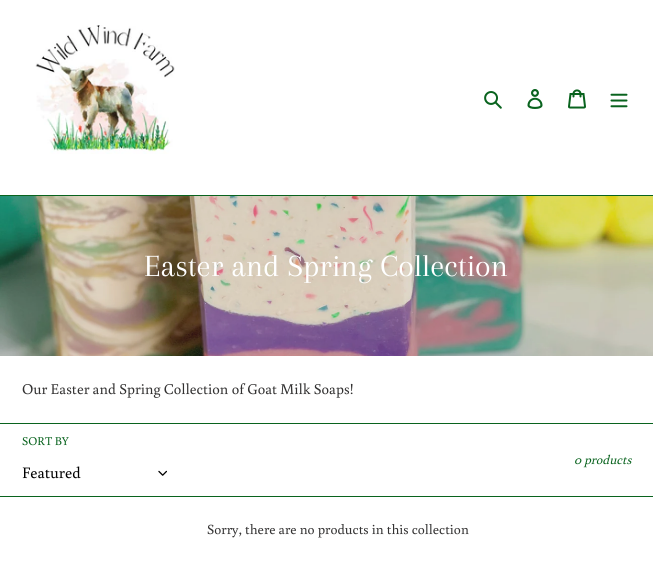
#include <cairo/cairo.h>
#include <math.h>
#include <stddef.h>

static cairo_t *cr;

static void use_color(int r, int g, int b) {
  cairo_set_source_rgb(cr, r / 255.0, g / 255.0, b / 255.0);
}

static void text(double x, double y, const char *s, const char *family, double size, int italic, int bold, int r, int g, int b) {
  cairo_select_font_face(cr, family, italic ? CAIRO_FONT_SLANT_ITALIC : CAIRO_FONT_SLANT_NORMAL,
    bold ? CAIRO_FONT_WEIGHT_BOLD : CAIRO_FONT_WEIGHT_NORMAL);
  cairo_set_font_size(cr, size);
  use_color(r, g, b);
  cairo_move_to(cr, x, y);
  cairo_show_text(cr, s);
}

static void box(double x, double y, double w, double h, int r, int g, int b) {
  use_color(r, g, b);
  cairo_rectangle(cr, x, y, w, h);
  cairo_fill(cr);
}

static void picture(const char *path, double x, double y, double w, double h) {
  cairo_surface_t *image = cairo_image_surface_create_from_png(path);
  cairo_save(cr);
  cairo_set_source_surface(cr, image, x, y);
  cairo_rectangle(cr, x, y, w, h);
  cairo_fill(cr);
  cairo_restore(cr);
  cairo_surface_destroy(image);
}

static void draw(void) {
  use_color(255, 255, 255);
  cairo_paint(cr);
  box(0, 195, 653, 1, 9, 99, 30);
  picture("img_01.png", 35, 25, 140, 129);
  picture("img_02.png", 484, 91, 18, 18);
  picture("img_03.png", 527, 89, 16, 20);
  picture("img_04.png", 568, 89, 18, 20);
  picture("img_05.png", 610, 93, 18, 15);
  picture("img_06.png", 0, 196, 653, 160);
  box(0, 423, 653, 1, 9, 99, 30);
  box(0, 496, 653, 1, 9, 99, 30);
  picture("img_07.png", 158, 470, 9, 6);
  text(144, 276, "Easter and Spring Collection", "Arapey", 32, 0, 0, 255, 255, 255);
  text(22, 394, "Our Easter and Spring Collection of Goat Milk Soaps!", "Buenard", 15, 0, 0, 51, 50, 50);
  text(22, 445, "SORT BY", "Buenard", 12, 0, 0, 9, 99, 30);
  text(22, 478, "Featured", "Buenard", 16, 0, 0, 0, 0, 0);
  text(574, 464, "0 products", "Buenard", 13, 1, 0, 9, 99, 30);
  text(207, 534, "Sorry, there are no products in this collection", "Buenard", 14, 0, 0, 51, 50, 50);
}

int main(void) {
  cairo_surface_t *surface = cairo_image_surface_create(CAIRO_FORMAT_RGB24, 653, 580);
  cr = cairo_create(surface);
  cairo_font_options_t *options = cairo_font_options_create();
  cairo_font_options_set_hint_metrics(options, CAIRO_HINT_METRICS_OFF);
  cairo_font_options_set_hint_style(options, CAIRO_HINT_STYLE_NONE);
  cairo_set_font_options(cr, options);
  cairo_set_miter_limit(cr, 4);
  draw();
  cairo_surface_write_to_png(surface, "out.png");
  cairo_font_options_destroy(options);
  cairo_destroy(cr);
  cairo_surface_destroy(surface);
  return 0;
}
